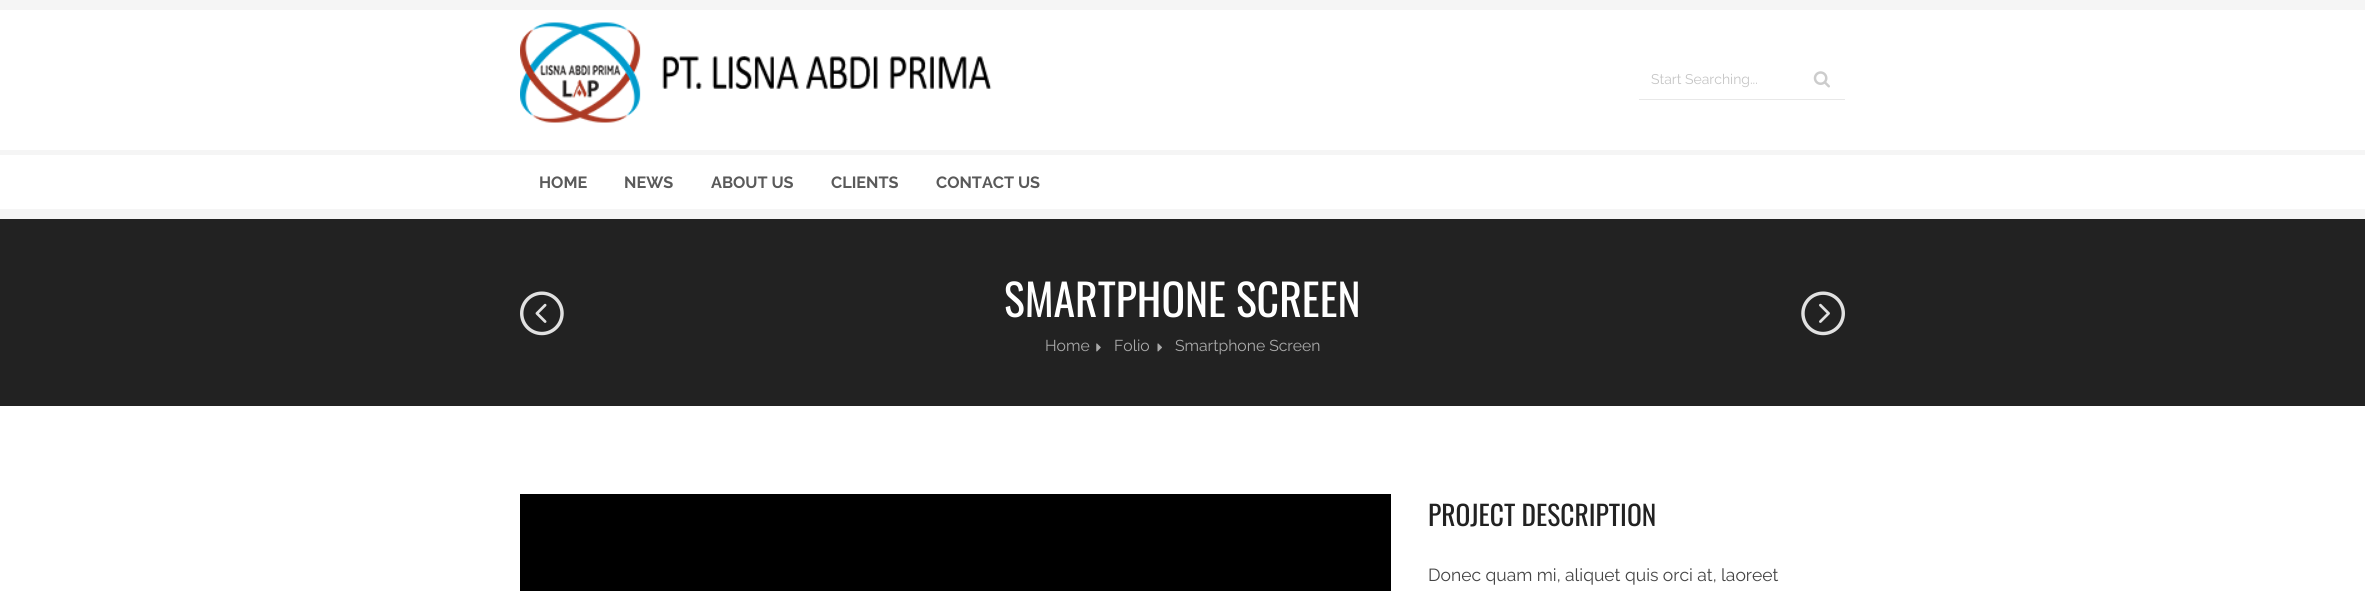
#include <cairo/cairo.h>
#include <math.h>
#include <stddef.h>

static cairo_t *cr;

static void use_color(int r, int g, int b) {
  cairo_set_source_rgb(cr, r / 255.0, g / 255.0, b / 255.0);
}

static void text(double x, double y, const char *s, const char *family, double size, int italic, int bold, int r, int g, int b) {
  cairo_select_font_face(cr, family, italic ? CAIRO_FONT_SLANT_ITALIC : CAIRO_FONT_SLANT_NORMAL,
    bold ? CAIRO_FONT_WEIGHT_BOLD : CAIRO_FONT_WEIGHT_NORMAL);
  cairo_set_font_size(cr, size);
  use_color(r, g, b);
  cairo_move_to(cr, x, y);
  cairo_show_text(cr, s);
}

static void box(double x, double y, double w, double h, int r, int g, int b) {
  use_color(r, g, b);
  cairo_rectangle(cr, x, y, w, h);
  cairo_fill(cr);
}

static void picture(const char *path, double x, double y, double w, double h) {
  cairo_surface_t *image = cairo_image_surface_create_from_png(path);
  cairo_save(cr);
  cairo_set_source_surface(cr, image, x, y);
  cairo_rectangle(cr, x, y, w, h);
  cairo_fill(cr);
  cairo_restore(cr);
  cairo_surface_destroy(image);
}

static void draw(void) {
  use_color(255, 255, 255);
  cairo_paint(cr);
  box(0, 0, 2365, 10, 245, 245, 245);
  picture("img_01.png", 520, 22, 472, 101);
  box(1639, 99, 206, 1, 232, 232, 232);
  picture("img_02.png", 1813, 71, 17, 17);
  box(0, 150, 2365, 5, 245, 245, 245);
  box(0, 209, 2365, 10, 245, 245, 245);
  box(0, 219, 2365, 187, 34, 34, 34);
  picture("img_03.png", 1096, 343, 5, 9);
  picture("img_04.png", 1157, 343, 5, 9);
  picture("img_05.png", 520, 291, 44, 45);
  picture("img_06.png", 1801, 291, 44, 45);
  box(520, 494, 871, 97, 0, 0, 0);
  text(1651, 84, "Start Searching...", "Raleway", 14, 0, 0, 197, 197, 197);
  text(539, 188, "HOME", "Raleway", 16.25, 0, 1, 90, 90, 90);
  text(624, 188, "NEWS", "Raleway", 16.25, 0, 1, 90, 90, 90);
  text(711, 188, "ABOUT US", "Raleway", 16.25, 0, 1, 90, 90, 90);
  text(831, 188, "CLIENTS", "Raleway", 16.25, 0, 1, 90, 90, 90);
  text(936, 188, "CONTACT US", "Raleway", 16.25, 0, 1, 90, 90, 90);
  text(1004, 317, "SMARTPHONE SCREEN", "Oswald", 43.75, 0, 0, 255, 255, 255);
  text(1045, 351, "Home", "Raleway", 15.75, 0, 0, 170, 170, 170);
  text(1114, 351, "Folio", "Raleway", 15.75, 0, 0, 170, 170, 170);
  text(1175, 351, "Smartphone Screen", "Raleway", 15.75, 0, 0, 170, 170, 170);
  text(1428, 526, "PROJECT DESCRIPTION", "Oswald", 27.5, 0, 0, 34, 34, 34);
  text(1428, 581, "Donec quam mi, aliquet quis orci at, laoreet", "Raleway", 17.5, 0, 0, 68, 68, 68);
}

int main(void) {
  cairo_surface_t *surface = cairo_image_surface_create(CAIRO_FORMAT_RGB24, 2365, 591);
  cr = cairo_create(surface);
  cairo_font_options_t *options = cairo_font_options_create();
  cairo_font_options_set_hint_metrics(options, CAIRO_HINT_METRICS_OFF);
  cairo_font_options_set_hint_style(options, CAIRO_HINT_STYLE_NONE);
  cairo_set_font_options(cr, options);
  cairo_set_miter_limit(cr, 4);
  draw();
  cairo_surface_write_to_png(surface, "out.png");
  cairo_font_options_destroy(options);
  cairo_destroy(cr);
  cairo_surface_destroy(surface);
  return 0;
}
